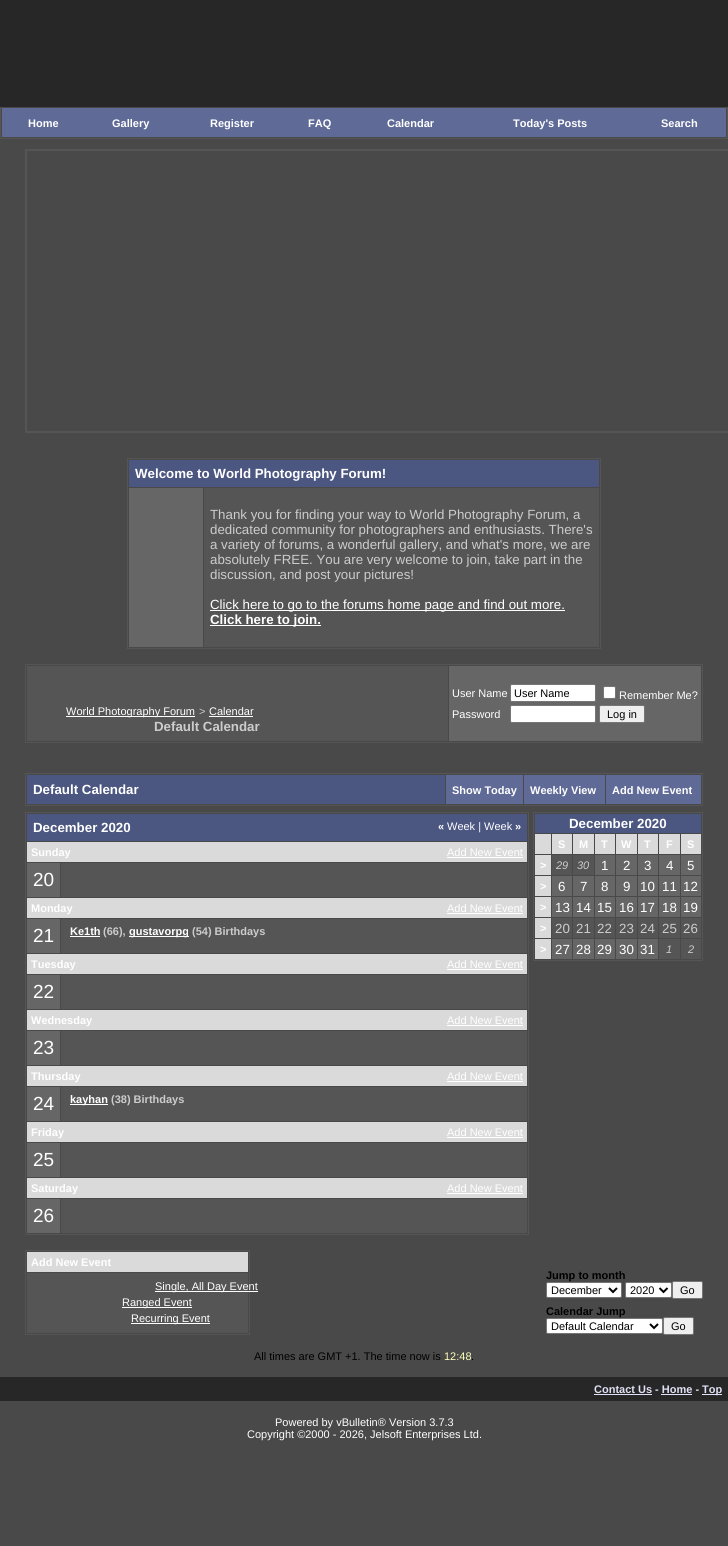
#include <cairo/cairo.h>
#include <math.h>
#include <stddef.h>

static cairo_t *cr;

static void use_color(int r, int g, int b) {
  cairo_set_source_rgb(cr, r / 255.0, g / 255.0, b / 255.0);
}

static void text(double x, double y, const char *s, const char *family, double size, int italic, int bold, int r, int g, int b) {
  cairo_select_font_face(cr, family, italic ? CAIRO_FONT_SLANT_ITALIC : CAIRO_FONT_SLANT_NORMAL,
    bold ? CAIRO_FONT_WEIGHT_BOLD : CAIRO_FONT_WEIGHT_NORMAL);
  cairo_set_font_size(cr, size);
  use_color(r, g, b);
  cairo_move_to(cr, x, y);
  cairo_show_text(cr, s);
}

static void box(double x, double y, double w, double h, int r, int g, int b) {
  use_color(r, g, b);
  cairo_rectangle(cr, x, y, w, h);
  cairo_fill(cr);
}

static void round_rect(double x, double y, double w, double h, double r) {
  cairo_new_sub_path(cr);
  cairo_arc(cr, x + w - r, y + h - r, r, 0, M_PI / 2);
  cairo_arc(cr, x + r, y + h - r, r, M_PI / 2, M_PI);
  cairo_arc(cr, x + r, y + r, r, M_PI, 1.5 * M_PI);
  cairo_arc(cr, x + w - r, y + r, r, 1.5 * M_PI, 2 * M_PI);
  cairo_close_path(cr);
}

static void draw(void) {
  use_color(73, 73, 73);
  cairo_paint(cr);
  box(0, 0, 728, 107, 39, 39, 39);
  box(727, 107, 1, 32, 85, 85, 85);
  box(0, 138, 728, 1, 85, 85, 85);
  box(0, 107, 1, 32, 85, 85, 85);
  box(2, 108, 724, 29, 95, 106, 151);
  cairo_rectangle(cr, 26, 150, 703, 282);
  use_color(85, 85, 85);
  cairo_stroke(cr);
  cairo_rectangle(cr, 127.5, 458.5, 473, 190);
  cairo_set_line_width(cr, 1);
  cairo_stroke(cr);
  box(129, 460, 470, 27, 75, 86, 129);
  box(129, 488, 74, 159, 102, 102, 102);
  box(204, 488, 395, 159, 85, 85, 85);
  box(210, 610, 355, 1, 255, 255, 255);
  box(210, 625, 111, 1, 255, 255, 255);
  cairo_rectangle(cr, 25.5, 664.5, 677, 78);
  use_color(85, 85, 85);
  cairo_stroke(cr);
  box(27, 666, 421, 75, 85, 85, 85);
  box(66, 716, 129, 1, 255, 255, 255);
  box(209, 716, 44, 1, 255, 255, 255);
  box(449, 666, 252, 75, 102, 102, 102);
  use_color(255, 255, 255);
  round_rect(510.5, 684.5, 85, 17, 1.5);
  cairo_fill_preserve(cr);
  use_color(118, 118, 118);
  cairo_stroke(cr);
  use_color(255, 255, 255);
  round_rect(603.5, 686.5, 12, 12, 1.5);
  cairo_fill_preserve(cr);
  use_color(118, 118, 118);
  cairo_stroke(cr);
  use_color(255, 255, 255);
  round_rect(510.5, 705.5, 85, 17, 1.5);
  cairo_fill_preserve(cr);
  use_color(118, 118, 118);
  cairo_stroke(cr);
  use_color(239, 239, 239);
  round_rect(599.5, 705.5, 45, 17, 1.5);
  cairo_fill_preserve(cr);
  use_color(118, 118, 118);
  cairo_stroke(cr);
  cairo_rectangle(cr, 25.5, 773.5, 677, 32);
  use_color(85, 85, 85);
  cairo_stroke(cr);
  box(27, 775, 418, 29, 75, 86, 129);
  box(446, 775, 77, 29, 95, 106, 151);
  box(524, 775, 81, 29, 95, 106, 151);
  box(606, 775, 95, 29, 95, 106, 151);
  cairo_rectangle(cr, 25.5, 812.5, 503, 422);
  use_color(85, 85, 85);
  cairo_stroke(cr);
  box(27, 814, 500, 27, 75, 86, 129);
  box(27, 842, 500, 20, 218, 218, 218);
  box(447, 857, 76, 1, 255, 255, 255);
  box(27, 863, 33, 34, 102, 102, 102);
  box(61, 863, 466, 34, 85, 85, 85);
  box(27, 898, 500, 20, 218, 218, 218);
  box(447, 913, 76, 1, 255, 255, 255);
  box(27, 919, 33, 34, 102, 102, 102);
  box(61, 919, 466, 34, 85, 85, 85);
  box(70, 936, 30, 1, 255, 255, 255);
  box(129, 936, 60, 1, 255, 255, 255);
  box(27, 954, 500, 20, 218, 218, 218);
  box(447, 969, 76, 1, 255, 255, 255);
  box(27, 975, 33, 34, 102, 102, 102);
  box(61, 975, 466, 34, 85, 85, 85);
  box(27, 1010, 500, 20, 218, 218, 218);
  box(447, 1025, 76, 1, 255, 255, 255);
  box(27, 1031, 33, 34, 102, 102, 102);
  box(61, 1031, 466, 34, 85, 85, 85);
  box(27, 1066, 500, 20, 218, 218, 218);
  box(447, 1081, 76, 1, 255, 255, 255);
  box(27, 1087, 33, 34, 102, 102, 102);
  box(61, 1087, 466, 34, 85, 85, 85);
  box(70, 1104, 38, 1, 255, 255, 255);
  box(27, 1122, 500, 20, 218, 218, 218);
  box(447, 1137, 76, 1, 255, 255, 255);
  box(27, 1143, 33, 34, 102, 102, 102);
  box(61, 1143, 466, 34, 85, 85, 85);
  box(27, 1178, 500, 20, 218, 218, 218);
  box(447, 1193, 76, 1, 255, 255, 255);
  box(27, 1199, 33, 34, 102, 102, 102);
  box(61, 1199, 466, 34, 85, 85, 85);
  cairo_rectangle(cr, 533.5, 812.5, 169, 148);
  cairo_stroke(cr);
  box(535, 814, 166, 19, 75, 86, 129);
  box(535, 834, 16, 20, 218, 218, 218);
  box(552, 834, 20, 20, 218, 218, 218);
  box(573, 834, 21, 20, 218, 218, 218);
  box(595, 834, 20, 20, 218, 218, 218);
  box(616, 834, 21, 20, 218, 218, 218);
  box(638, 834, 20, 20, 218, 218, 218);
  box(659, 834, 21, 20, 218, 218, 218);
  box(681, 834, 20, 20, 218, 218, 218);
  box(535, 855, 16, 20, 218, 218, 218);
  box(552, 855, 20, 20, 85, 85, 85);
  box(573, 855, 21, 20, 85, 85, 85);
  box(595, 855, 20, 20, 102, 102, 102);
  box(616, 855, 21, 20, 102, 102, 102);
  box(638, 855, 20, 20, 102, 102, 102);
  box(659, 855, 21, 20, 102, 102, 102);
  box(681, 855, 20, 20, 102, 102, 102);
  box(535, 876, 16, 20, 218, 218, 218);
  box(552, 876, 20, 20, 102, 102, 102);
  box(573, 876, 21, 20, 102, 102, 102);
  box(595, 876, 20, 20, 102, 102, 102);
  box(616, 876, 21, 20, 102, 102, 102);
  box(638, 876, 20, 20, 102, 102, 102);
  box(659, 876, 21, 20, 102, 102, 102);
  box(681, 876, 20, 20, 102, 102, 102);
  box(535, 897, 16, 20, 218, 218, 218);
  box(552, 897, 20, 20, 102, 102, 102);
  box(573, 897, 21, 20, 102, 102, 102);
  box(595, 897, 20, 20, 102, 102, 102);
  box(616, 897, 21, 20, 102, 102, 102);
  box(638, 897, 20, 20, 102, 102, 102);
  box(659, 897, 21, 20, 102, 102, 102);
  box(681, 897, 20, 20, 102, 102, 102);
  box(535, 918, 16, 20, 218, 218, 218);
  box(552, 918, 20, 20, 85, 85, 85);
  box(573, 918, 21, 20, 85, 85, 85);
  box(595, 918, 20, 20, 85, 85, 85);
  box(616, 918, 21, 20, 85, 85, 85);
  box(638, 918, 20, 20, 85, 85, 85);
  box(659, 918, 21, 20, 85, 85, 85);
  box(681, 918, 20, 20, 85, 85, 85);
  box(535, 939, 16, 20, 218, 218, 218);
  box(552, 939, 20, 20, 102, 102, 102);
  box(573, 939, 21, 20, 102, 102, 102);
  box(595, 939, 20, 20, 102, 102, 102);
  box(616, 939, 21, 20, 102, 102, 102);
  box(638, 939, 20, 20, 102, 102, 102);
  box(659, 939, 21, 20, 85, 85, 85);
  box(681, 939, 20, 20, 85, 85, 85);
  cairo_rectangle(cr, 25.5, 1250.5, 224, 84);
  cairo_stroke(cr);
  box(27, 1252, 221, 20, 218, 218, 218);
  box(27, 1273, 221, 60, 85, 85, 85);
  box(155, 1291, 103, 1, 255, 255, 255);
  box(122, 1307, 70, 1, 255, 255, 255);
  box(131, 1323, 79, 1, 255, 255, 255);
  round_rect(546.5, 1282.5, 75, 15, 1.5);
  cairo_fill_preserve(cr);
  use_color(118, 118, 118);
  cairo_stroke(cr);
  cairo_new_path(cr);
  cairo_move_to(cr, 609, 1288);
  cairo_line_to(cr, 613, 1292);
  cairo_line_to(cr, 617, 1288);
  use_color(0, 0, 0);
  cairo_set_line_width(cr, 2);
  cairo_stroke(cr);
  use_color(255, 255, 255);
  round_rect(625.5, 1282.5, 46, 15, 1.5);
  cairo_fill_preserve(cr);
  use_color(118, 118, 118);
  cairo_set_line_width(cr, 1);
  cairo_stroke(cr);
  cairo_new_path(cr);
  cairo_move_to(cr, 659.5, 1288);
  cairo_line_to(cr, 663.5, 1292);
  cairo_line_to(cr, 667.5, 1288);
  use_color(0, 0, 0);
  cairo_set_line_width(cr, 2);
  cairo_stroke(cr);
  use_color(239, 239, 239);
  round_rect(672.5, 1281.5, 30, 17, 1.5);
  cairo_fill_preserve(cr);
  use_color(118, 118, 118);
  cairo_set_line_width(cr, 1);
  cairo_stroke(cr);
  use_color(255, 255, 255);
  round_rect(546.5, 1318.5, 116, 15, 1.5);
  cairo_fill_preserve(cr);
  use_color(118, 118, 118);
  cairo_stroke(cr);
  cairo_new_path(cr);
  cairo_move_to(cr, 650, 1324);
  cairo_line_to(cr, 654, 1328);
  cairo_line_to(cr, 658, 1324);
  use_color(0, 0, 0);
  cairo_set_line_width(cr, 2);
  cairo_stroke(cr);
  use_color(239, 239, 239);
  round_rect(663.5, 1317.5, 30, 17, 1.5);
  cairo_fill_preserve(cr);
  use_color(118, 118, 118);
  cairo_set_line_width(cr, 1);
  cairo_stroke(cr);
  box(0, 1377, 728, 24, 39, 39, 39);
  box(594, 1394, 58, 1, 224, 224, 246);
  box(661, 1394, 31, 1, 224, 224, 246);
  box(702, 1394, 20, 1, 224, 224, 246);
  text(28, 127, "Home", "Liberation Sans", 11, 0, 1, 255, 255, 255);
  text(112, 127, "Gallery", "Liberation Sans", 11, 0, 1, 255, 255, 255);
  text(210, 127, "Register", "Liberation Sans", 11, 0, 1, 255, 255, 255);
  text(308, 127, "FAQ", "Liberation Sans", 11, 0, 1, 255, 255, 255);
  text(387, 127, "Calendar", "Liberation Sans", 11, 0, 1, 255, 255, 255);
  text(513, 127, "Today's Posts", "Liberation Sans", 11, 0, 1, 255, 255, 255);
  text(661, 127, "Search", "Liberation Sans", 11, 0, 1, 255, 255, 255);
  text(135, 478, "Welcome to World Photography Forum!", "Liberation Sans", 13.3, 0, 1, 255, 255, 255);
  text(210, 519, "Thank you for finding your way to World Photography Forum, a", "Liberation Sans", 13.3, 0, 0, 204, 204, 204);
  text(210, 534, "dedicated community for photographers and enthusiasts. There's", "Liberation Sans", 13.3, 0, 0, 204, 204, 204);
  text(210, 549, "a variety of forums, a wonderful gallery, and what's more, we are", "Liberation Sans", 13.3, 0, 0, 204, 204, 204);
  text(210, 564, "absolutely FREE. You are very welcome to join, take part in the", "Liberation Sans", 13.3, 0, 0, 204, 204, 204);
  text(210, 579, "discussion, and post your pictures!", "Liberation Sans", 13.3, 0, 0, 204, 204, 204);
  text(210, 609, "Click here to go to the forums home page and find out more.", "Liberation Sans", 13.3, 0, 0, 255, 255, 255);
  text(210, 624, "Click here to join.", "Liberation Sans", 13.3, 0, 1, 255, 255, 255);
  text(66, 715, "World Photography Forum", "Liberation Sans", 11, 0, 0, 255, 255, 255);
  text(199, 715, ">", "Liberation Sans", 11, 0, 0, 204, 204, 204);
  text(209, 715, "Calendar", "Liberation Sans", 11, 0, 0, 255, 255, 255);
  text(154, 731, "Default Calendar", "Liberation Sans", 13.3, 0, 1, 204, 204, 204);
  text(452, 697, "User Name", "Liberation Sans", 11, 0, 0, 255, 255, 255);
  text(514, 697, "User Name", "Liberation Sans", 11, 0, 0, 0, 0, 0);
  text(619, 699, "Remember Me?", "Liberation Sans", 11, 0, 0, 255, 255, 255);
  text(452, 718, "Password", "Liberation Sans", 11, 0, 0, 255, 255, 255);
  text(607, 718, "Log in", "Liberation Sans", 11, 0, 0, 0, 0, 0);
  text(33, 794, "Default Calendar", "Liberation Sans", 13.3, 0, 1, 255, 255, 255);
  text(452, 794, "Show Today", "Liberation Sans", 11, 0, 1, 255, 255, 255);
  text(530, 794, "Weekly View", "Liberation Sans", 11, 0, 1, 255, 255, 255);
  text(612, 794, "Add New Event", "Liberation Sans", 11, 0, 1, 255, 255, 255);
  text(33, 832, "December 2020", "Liberation Sans", 13.3, 0, 1, 255, 255, 255);
  text(438, 830, "«", "Liberation Sans", 11, 0, 1, 255, 255, 255);
  text(447, 830, "Week | Week", "Liberation Sans", 11, 0, 0, 255, 255, 255);
  text(515, 830, "»", "Liberation Sans", 11, 0, 1, 255, 255, 255);
  text(31, 856, "Sunday", "Liberation Sans", 11, 0, 1, 255, 255, 255);
  text(447, 856, "Add New Event", "Liberation Sans", 11, 0, 0, 255, 255, 255);
  text(33, 886, "20", "Liberation Sans", 19, 0, 0, 255, 255, 255);
  text(31, 912, "Monday", "Liberation Sans", 11, 0, 1, 255, 255, 255);
  text(447, 912, "Add New Event", "Liberation Sans", 11, 0, 0, 255, 255, 255);
  text(33, 942, "21", "Liberation Sans", 19, 0, 0, 255, 255, 255);
  text(70, 935, "Ke1th", "Liberation Sans", 11, 0, 1, 255, 255, 255);
  text(103, 935, "(66),", "Liberation Sans", 11, 0, 1, 204, 204, 204);
  text(129, 935, "gustavorpg", "Liberation Sans", 11, 0, 1, 255, 255, 255);
  text(192, 935, "(54) Birthdays", "Liberation Sans", 11, 0, 1, 204, 204, 204);
  text(31, 968, "Tuesday", "Liberation Sans", 11, 0, 1, 255, 255, 255);
  text(447, 968, "Add New Event", "Liberation Sans", 11, 0, 0, 255, 255, 255);
  text(33, 998, "22", "Liberation Sans", 19, 0, 0, 255, 255, 255);
  text(31, 1024, "Wednesday", "Liberation Sans", 11, 0, 1, 255, 255, 255);
  text(447, 1024, "Add New Event", "Liberation Sans", 11, 0, 0, 255, 255, 255);
  text(33, 1054, "23", "Liberation Sans", 19, 0, 0, 255, 255, 255);
  text(31, 1080, "Thursday", "Liberation Sans", 11, 0, 1, 255, 255, 255);
  text(447, 1080, "Add New Event", "Liberation Sans", 11, 0, 0, 255, 255, 255);
  text(33, 1110, "24", "Liberation Sans", 19, 0, 0, 255, 255, 255);
  text(70, 1103, "kayhan", "Liberation Sans", 11, 0, 1, 255, 255, 255);
  text(111, 1103, "(38) Birthdays", "Liberation Sans", 11, 0, 1, 204, 204, 204);
  text(31, 1136, "Friday", "Liberation Sans", 11, 0, 1, 255, 255, 255);
  text(447, 1136, "Add New Event", "Liberation Sans", 11, 0, 0, 255, 255, 255);
  text(33, 1166, "25", "Liberation Sans", 19, 0, 0, 255, 255, 255);
  text(31, 1192, "Saturday", "Liberation Sans", 11, 0, 1, 255, 255, 255);
  text(447, 1192, "Add New Event", "Liberation Sans", 11, 0, 0, 255, 255, 255);
  text(33, 1222, "26", "Liberation Sans", 19, 0, 0, 255, 255, 255);
  text(569, 828, "December 2020", "Liberation Sans", 13.3, 0, 1, 255, 255, 255);
  text(558, 848, "S", "Liberation Sans", 11, 0, 1, 255, 255, 255);
  text(579, 848, "M", "Liberation Sans", 11, 0, 1, 255, 255, 255);
  text(601, 848, "T", "Liberation Sans", 11, 0, 1, 255, 255, 255);
  text(621, 848, "W", "Liberation Sans", 11, 0, 1, 255, 255, 255);
  text(644, 848, "T", "Liberation Sans", 11, 0, 1, 255, 255, 255);
  text(666, 848, "F", "Liberation Sans", 11, 0, 1, 255, 255, 255);
  text(687, 848, "S", "Liberation Sans", 11, 0, 1, 255, 255, 255);
  text(540, 869, ">", "Liberation Sans", 11, 0, 1, 255, 255, 255);
  text(556, 869, "29", "Liberation Sans", 11, 1, 0, 204, 204, 204);
  text(577, 869, "30", "Liberation Sans", 11, 1, 0, 204, 204, 204);
  text(601, 870, "1", "Liberation Sans", 13.3, 0, 0, 255, 255, 255);
  text(623, 870, "2", "Liberation Sans", 13.3, 0, 0, 255, 255, 255);
  text(644, 870, "3", "Liberation Sans", 13.3, 0, 0, 255, 255, 255);
  text(666, 870, "4", "Liberation Sans", 13.3, 0, 0, 255, 255, 255);
  text(687, 870, "5", "Liberation Sans", 13.3, 0, 0, 255, 255, 255);
  text(540, 890, ">", "Liberation Sans", 11, 0, 1, 255, 255, 255);
  text(558, 891, "6", "Liberation Sans", 13.3, 0, 0, 255, 255, 255);
  text(580, 891, "7", "Liberation Sans", 13.3, 0, 0, 255, 255, 255);
  text(601, 891, "8", "Liberation Sans", 13.3, 0, 0, 255, 255, 255);
  text(623, 891, "9", "Liberation Sans", 13.3, 0, 0, 255, 255, 255);
  text(640, 891, "10", "Liberation Sans", 13.3, 0, 0, 255, 255, 255);
  text(662, 891, "11", "Liberation Sans", 13.3, 0, 0, 255, 255, 255);
  text(683, 891, "12", "Liberation Sans", 13.3, 0, 0, 255, 255, 255);
  text(540, 911, ">", "Liberation Sans", 11, 0, 1, 255, 255, 255);
  text(555, 912, "13", "Liberation Sans", 13.3, 0, 0, 255, 255, 255);
  text(576, 912, "14", "Liberation Sans", 13.3, 0, 0, 255, 255, 255);
  text(597, 912, "15", "Liberation Sans", 13.3, 0, 0, 255, 255, 255);
  text(619, 912, "16", "Liberation Sans", 13.3, 0, 0, 255, 255, 255);
  text(640, 912, "17", "Liberation Sans", 13.3, 0, 0, 255, 255, 255);
  text(662, 912, "18", "Liberation Sans", 13.3, 0, 0, 255, 255, 255);
  text(683, 912, "19", "Liberation Sans", 13.3, 0, 0, 255, 255, 255);
  text(540, 932, ">", "Liberation Sans", 11, 0, 1, 255, 255, 255);
  text(555, 933, "20", "Liberation Sans", 13.3, 0, 0, 204, 204, 204);
  text(576, 933, "21", "Liberation Sans", 13.3, 0, 0, 204, 204, 204);
  text(597, 933, "22", "Liberation Sans", 13.3, 0, 0, 204, 204, 204);
  text(619, 933, "23", "Liberation Sans", 13.3, 0, 0, 204, 204, 204);
  text(640, 933, "24", "Liberation Sans", 13.3, 0, 0, 204, 204, 204);
  text(662, 933, "25", "Liberation Sans", 13.3, 0, 0, 204, 204, 204);
  text(683, 933, "26", "Liberation Sans", 13.3, 0, 0, 204, 204, 204);
  text(540, 953, ">", "Liberation Sans", 11, 0, 1, 255, 255, 255);
  text(555, 954, "27", "Liberation Sans", 13.3, 0, 0, 255, 255, 255);
  text(576, 954, "28", "Liberation Sans", 13.3, 0, 0, 255, 255, 255);
  text(597, 954, "29", "Liberation Sans", 13.3, 0, 0, 255, 255, 255);
  text(619, 954, "30", "Liberation Sans", 13.3, 0, 0, 255, 255, 255);
  text(640, 954, "31", "Liberation Sans", 13.3, 0, 0, 255, 255, 255);
  text(666, 953, "1", "Liberation Sans", 11, 1, 0, 204, 204, 204);
  text(688, 953, "2", "Liberation Sans", 11, 1, 0, 204, 204, 204);
  text(31, 1266, "Add New Event", "Liberation Sans", 11, 0, 1, 255, 255, 255);
  text(155, 1290, "Single, All Day Event", "Liberation Sans", 11, 0, 0, 255, 255, 255);
  text(122, 1306, "Ranged Event", "Liberation Sans", 11, 0, 0, 255, 255, 255);
  text(131, 1322, "Recurring Event", "Liberation Sans", 11, 0, 0, 255, 255, 255);
  text(546, 1279, "Jump to month", "Liberation Sans", 11, 0, 1, 0, 0, 0);
  text(551, 1294, "December", "Liberation Sans", 11, 0, 0, 0, 0, 0);
  text(630, 1294, "2020", "Liberation Sans", 11, 0, 0, 0, 0, 0);
  text(680, 1294, "Go", "Liberation Sans", 11, 0, 0, 0, 0, 0);
  text(546, 1315, "Calendar Jump", "Liberation Sans", 11, 0, 1, 0, 0, 0);
  text(551, 1330, "Default Calendar", "Liberation Sans", 11, 0, 0, 0, 0, 0);
  text(671, 1330, "Go", "Liberation Sans", 11, 0, 0, 0, 0, 0);
  text(254, 1360, "All times are GMT +1. The time now is", "Liberation Sans", 11, 0, 0, 0, 0, 0);
  text(444, 1360, "12:48", "Liberation Sans", 11, 0, 0, 255, 255, 187);
  text(471, 1360, ".", "Liberation Sans", 11, 0, 0, 0, 0, 0);
  text(594, 1393, "Contact Us - Home -", "Liberation Sans", 11, 0, 1, 224, 224, 246);
  text(702, 1393, "Top", "Liberation Sans", 11, 0, 1, 224, 224, 246);
  text(275, 1426, "Powered by vBulletin® Version 3.7.3", "Liberation Sans", 11, 0, 0, 255, 255, 255);
  text(247, 1438, "Copyright ©2000 - 2026, Jelsoft Enterprises Ltd.", "Liberation Sans", 11, 0, 0, 255, 255, 255);
}

int main(void) {
  cairo_surface_t *surface = cairo_image_surface_create(CAIRO_FORMAT_RGB24, 728, 1546);
  cr = cairo_create(surface);
  cairo_font_options_t *options = cairo_font_options_create();
  cairo_font_options_set_hint_metrics(options, CAIRO_HINT_METRICS_OFF);
  cairo_font_options_set_hint_style(options, CAIRO_HINT_STYLE_NONE);
  cairo_set_font_options(cr, options);
  cairo_set_miter_limit(cr, 4);
  draw();
  cairo_surface_write_to_png(surface, "out.png");
  cairo_font_options_destroy(options);
  cairo_destroy(cr);
  cairo_surface_destroy(surface);
  return 0;
}
